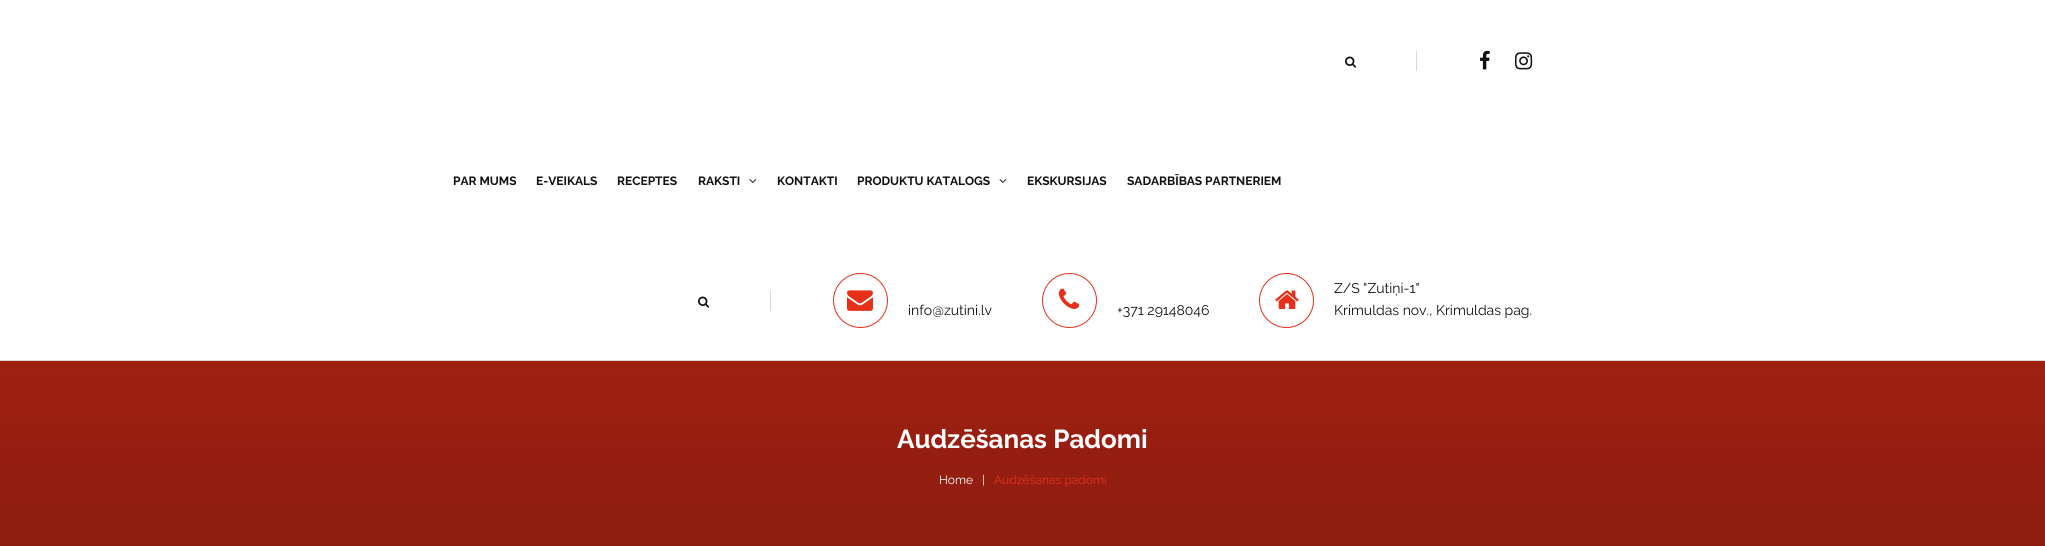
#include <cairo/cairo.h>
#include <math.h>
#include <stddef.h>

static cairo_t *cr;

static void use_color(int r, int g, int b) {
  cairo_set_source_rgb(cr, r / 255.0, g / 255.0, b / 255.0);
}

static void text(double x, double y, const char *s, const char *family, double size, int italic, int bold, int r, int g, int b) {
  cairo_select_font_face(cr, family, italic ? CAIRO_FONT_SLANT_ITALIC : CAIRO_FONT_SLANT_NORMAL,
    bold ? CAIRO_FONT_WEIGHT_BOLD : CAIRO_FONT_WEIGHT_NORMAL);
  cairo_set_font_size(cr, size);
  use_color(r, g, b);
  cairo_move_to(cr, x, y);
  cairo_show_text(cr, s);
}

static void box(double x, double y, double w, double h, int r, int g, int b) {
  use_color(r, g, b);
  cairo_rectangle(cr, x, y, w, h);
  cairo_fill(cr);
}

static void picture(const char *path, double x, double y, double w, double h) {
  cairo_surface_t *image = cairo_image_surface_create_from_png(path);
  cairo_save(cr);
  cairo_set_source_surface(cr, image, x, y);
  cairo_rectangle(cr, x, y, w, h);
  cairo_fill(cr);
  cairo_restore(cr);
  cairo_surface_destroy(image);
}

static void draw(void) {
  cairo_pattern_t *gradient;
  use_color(255, 255, 255);
  cairo_paint(cr);
  box(0, 360, 2045, 1, 218, 215, 215);
  picture("img_01.png", 1345, 56, 12, 12);
  box(1416, 51, 1, 20, 218, 215, 215);
  picture("img_02.png", 1480, 50, 10, 20);
  picture("img_03.png", 1515, 52, 18, 18);
  picture("img_04.png", 749, 179, 8, 4);
  picture("img_04.png", 999, 179, 8, 4);
  picture("img_01.png", 698, 296, 12, 12);
  box(770, 291, 1, 20, 218, 215, 215);
  cairo_arc(cr, 860.5, 300.5, 27, 0, 2 * M_PI);
  use_color(231, 48, 26);
  cairo_set_line_width(cr, 1);
  cairo_stroke(cr);
  picture("img_05.png", 847, 290, 26, 21);
  cairo_arc(cr, 1069.5, 300.5, 27, 0, 2 * M_PI);
  cairo_stroke(cr);
  picture("img_06.png", 1058, 288, 22, 21);
  cairo_arc(cr, 1286.5, 300.5, 27, 0, 2 * M_PI);
  cairo_stroke(cr);
  picture("img_07.png", 1275, 290, 24, 19);
  gradient = cairo_pattern_create_linear(0, 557, 0, 361);
  cairo_pattern_add_color_stop_rgba(gradient, 0, 0.549, 0.11, 0.059, 1);
  cairo_pattern_add_color_stop_rgba(gradient, 1, 0.624, 0.125, 0.067, 1);
  cairo_set_source(cr, gradient);
  cairo_pattern_destroy(gradient);
  cairo_rectangle(cr, 0, 361, 2045, 185);
  cairo_fill(cr);
  text(453, 185, "PAR MUMS", "Raleway", 12, 0, 1, 17, 17, 17);
  text(536, 185, "E-VEIKALS", "Raleway", 12, 0, 1, 17, 17, 17);
  text(617, 185, "RECEPTES", "Raleway", 12, 0, 1, 17, 17, 17);
  text(698, 185, "RAKSTI", "Raleway", 12, 0, 1, 17, 17, 17);
  text(777, 185, "KONTAKTI", "Raleway", 12, 0, 1, 17, 17, 17);
  text(857, 185, "PRODUKTU KATALOGS", "Raleway", 12, 0, 1, 17, 17, 17);
  text(1027, 185, "EKSKURSIJAS", "Raleway", 12, 0, 1, 17, 17, 17);
  text(1127, 185, "SADARBĪBAS PARTNERIEM", "Raleway", 12, 0, 1, 17, 17, 17);
  text(908, 315, "info@zutini.lv", "Raleway", 14, 0, 0, 17, 17, 17);
  text(1117, 315, "+371 29148046", "Raleway", 14, 0, 0, 17, 17, 17);
  text(1334, 293, "Z/S \"Zutiņi-1\"", "Raleway", 14, 0, 0, 17, 17, 17);
  text(1334, 315, "Krimuldas nov., Krimuldas pag.", "Raleway", 14, 0, 0, 17, 17, 17);
  text(897, 448, "Audzēšanas Padomi", "Raleway", 26, 0, 1, 255, 255, 255);
  text(939, 484, "Home", "Raleway", 12, 0, 0, 255, 255, 255);
  text(982, 484, "|", "Raleway", 12, 0, 0, 255, 255, 255);
  text(994, 484, "Audzēšanas padomi", "Raleway", 12, 0, 0, 231, 48, 26);
}

int main(void) {
  cairo_surface_t *surface = cairo_image_surface_create(CAIRO_FORMAT_RGB24, 2045, 546);
  cr = cairo_create(surface);
  cairo_font_options_t *options = cairo_font_options_create();
  cairo_font_options_set_hint_metrics(options, CAIRO_HINT_METRICS_OFF);
  cairo_font_options_set_hint_style(options, CAIRO_HINT_STYLE_NONE);
  cairo_set_font_options(cr, options);
  cairo_set_miter_limit(cr, 4);
  draw();
  cairo_surface_write_to_png(surface, "out.png");
  cairo_font_options_destroy(options);
  cairo_destroy(cr);
  cairo_surface_destroy(surface);
  return 0;
}
